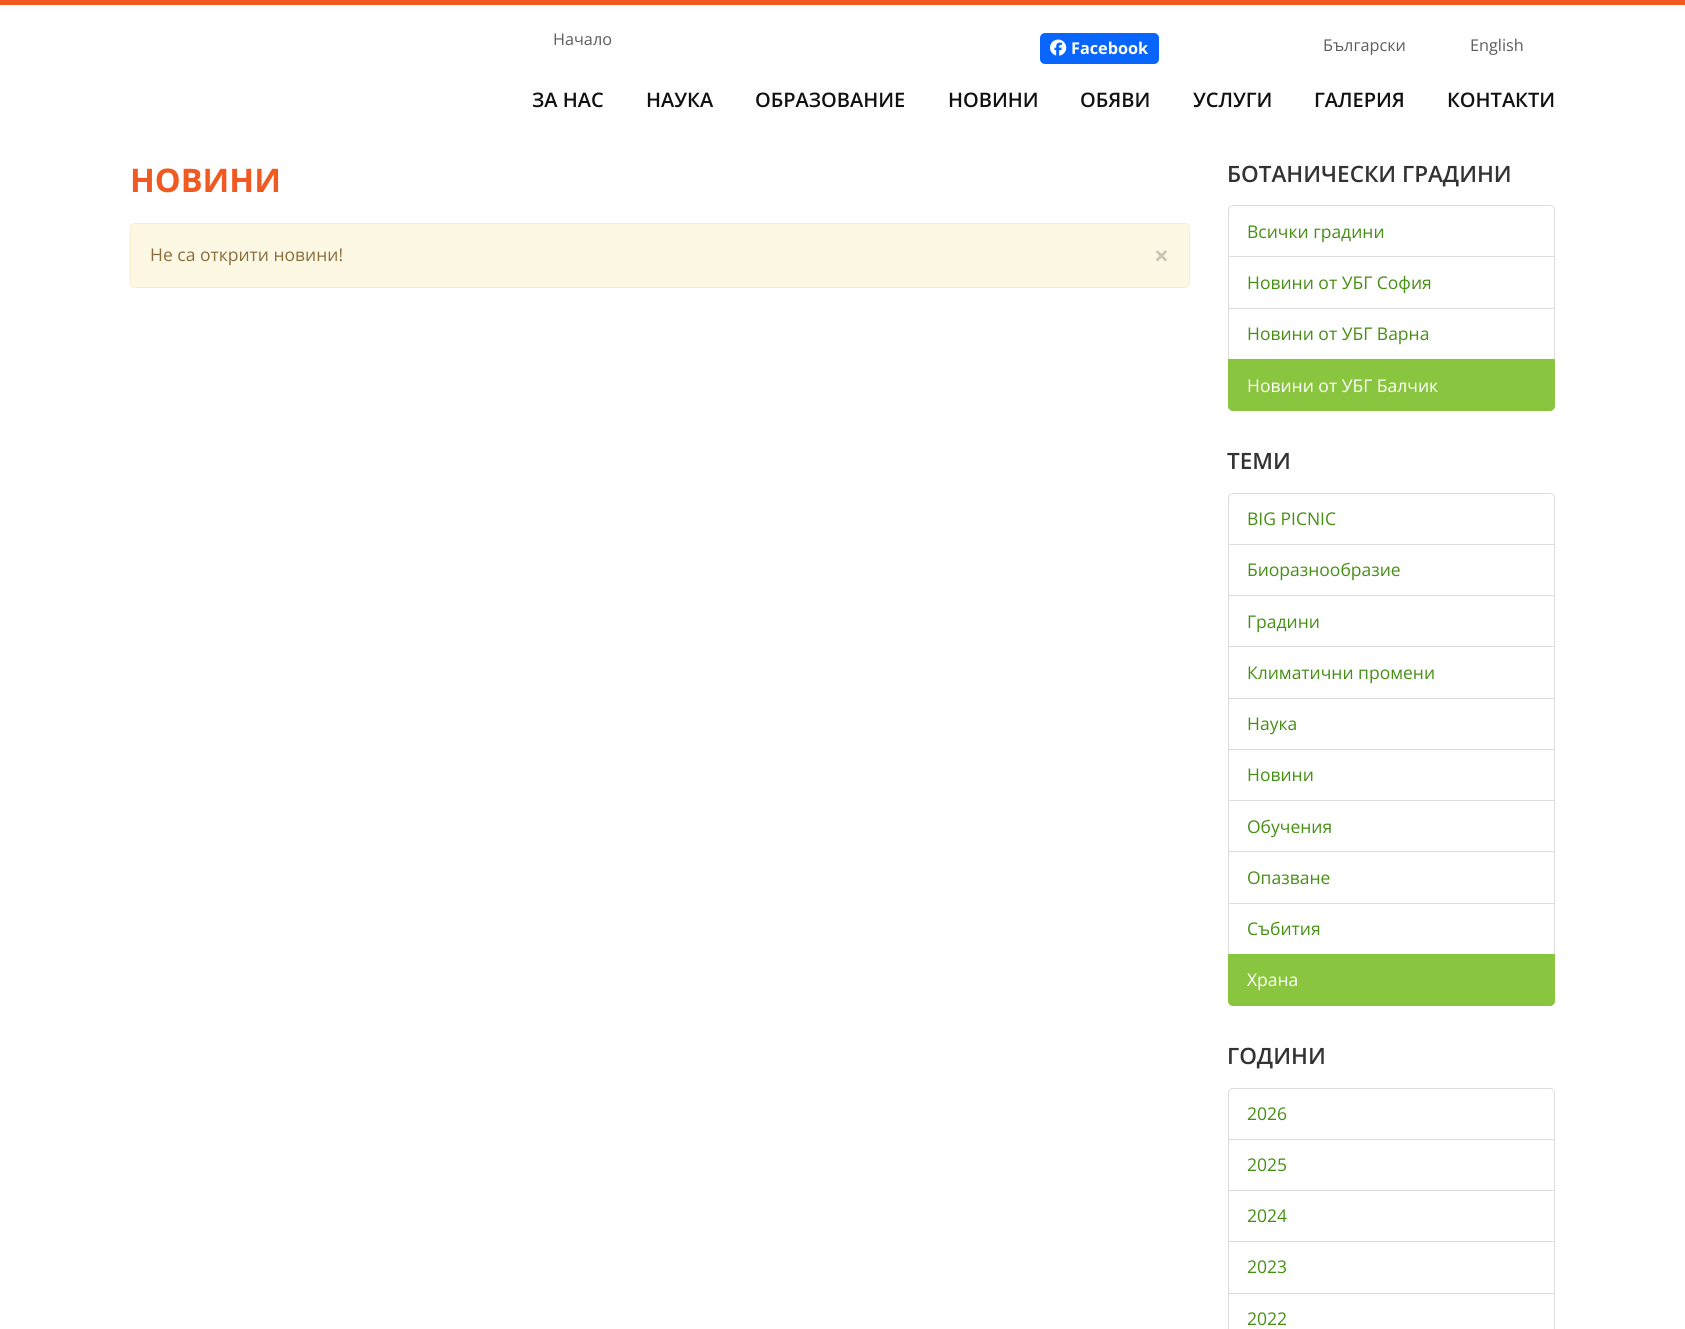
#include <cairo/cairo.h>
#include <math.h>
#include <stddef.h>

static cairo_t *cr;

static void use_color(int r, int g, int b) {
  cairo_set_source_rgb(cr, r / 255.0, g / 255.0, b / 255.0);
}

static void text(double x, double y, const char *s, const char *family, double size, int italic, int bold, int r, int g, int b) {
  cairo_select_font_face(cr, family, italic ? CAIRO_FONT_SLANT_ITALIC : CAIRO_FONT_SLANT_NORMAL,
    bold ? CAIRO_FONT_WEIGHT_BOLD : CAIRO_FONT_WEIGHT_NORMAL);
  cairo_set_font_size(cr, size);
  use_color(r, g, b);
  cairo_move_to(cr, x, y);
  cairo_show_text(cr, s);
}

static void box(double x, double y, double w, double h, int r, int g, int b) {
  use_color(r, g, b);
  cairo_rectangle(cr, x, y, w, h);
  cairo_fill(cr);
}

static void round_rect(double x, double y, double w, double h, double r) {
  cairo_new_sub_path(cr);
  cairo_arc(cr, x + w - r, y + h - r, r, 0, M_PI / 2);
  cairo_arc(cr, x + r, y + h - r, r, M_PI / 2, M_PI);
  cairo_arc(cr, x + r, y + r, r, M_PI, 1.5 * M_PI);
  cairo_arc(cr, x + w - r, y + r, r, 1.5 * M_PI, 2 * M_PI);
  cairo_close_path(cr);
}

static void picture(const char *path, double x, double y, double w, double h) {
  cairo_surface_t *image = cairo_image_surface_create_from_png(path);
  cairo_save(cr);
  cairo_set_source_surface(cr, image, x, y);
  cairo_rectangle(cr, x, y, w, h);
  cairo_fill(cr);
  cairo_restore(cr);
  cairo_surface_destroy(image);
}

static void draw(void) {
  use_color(255, 255, 255);
  cairo_paint(cr);
  box(0, 0, 1685, 5, 241, 89, 34);
  use_color(8, 102, 255);
  round_rect(1040, 33, 119, 31, 5);
  cairo_fill(cr);
  picture("img_01.png", 1050, 39, 17, 17);
  use_color(252, 248, 227);
  round_rect(130.5, 223.5, 1059, 64, 4.5);
  cairo_fill_preserve(cr);
  use_color(250, 235, 204);
  cairo_set_line_width(cr, 1);
  cairo_stroke(cr);
  cairo_new_path(cr);
  cairo_move_to(cr, 1233, 205.5);
  cairo_line_to(cr, 1550, 205.5);
  cairo_curve_to(cr, 1552.5, 205.5, 1554.5, 207.5, 1554.5, 210);
  cairo_line_to(cr, 1554.5, 257.5);
  cairo_line_to(cr, 1228.5, 257.5);
  cairo_line_to(cr, 1228.5, 210);
  cairo_curve_to(cr, 1228.5, 207.5, 1230.5, 205.5, 1233, 205.5);
  cairo_close_path(cr);
  use_color(221, 221, 221);
  cairo_stroke(cr);
  box(1229, 257, 325, 1, 255, 255, 255);
  cairo_rectangle(cr, 1228.5, 256.5, 326, 52);
  use_color(221, 221, 221);
  cairo_stroke(cr);
  cairo_rectangle(cr, 1228.5, 308.5, 326, 51);
  cairo_stroke(cr);
  use_color(137, 197, 63);
  cairo_new_path(cr);
  cairo_move_to(cr, 1228.5, 359.5);
  cairo_line_to(cr, 1554.5, 359.5);
  cairo_line_to(cr, 1554.5, 406);
  cairo_curve_to(cr, 1554.5, 408.5, 1552.5, 410.5, 1550, 410.5);
  cairo_line_to(cr, 1233, 410.5);
  cairo_curve_to(cr, 1230.5, 410.5, 1228.5, 408.5, 1228.5, 406);
  cairo_close_path(cr);
  cairo_fill_preserve(cr);
  cairo_stroke(cr);
  cairo_new_path(cr);
  cairo_move_to(cr, 1233, 493.5);
  cairo_line_to(cr, 1550, 493.5);
  cairo_curve_to(cr, 1552.5, 493.5, 1554.5, 495.5, 1554.5, 498);
  cairo_line_to(cr, 1554.5, 544.5);
  cairo_line_to(cr, 1228.5, 544.5);
  cairo_line_to(cr, 1228.5, 498);
  cairo_curve_to(cr, 1228.5, 495.5, 1230.5, 493.5, 1233, 493.5);
  cairo_close_path(cr);
  use_color(221, 221, 221);
  cairo_stroke(cr);
  cairo_rectangle(cr, 1228.5, 544.5, 326, 51);
  cairo_stroke(cr);
  cairo_rectangle(cr, 1228.5, 595.5, 326, 52);
  cairo_stroke(cr);
  box(1229, 647, 325, 1, 255, 255, 255);
  cairo_rectangle(cr, 1228.5, 646.5, 326, 52);
  use_color(221, 221, 221);
  cairo_stroke(cr);
  cairo_rectangle(cr, 1228.5, 698.5, 326, 51);
  cairo_stroke(cr);
  cairo_rectangle(cr, 1228.5, 749.5, 326, 51);
  cairo_stroke(cr);
  cairo_rectangle(cr, 1228.5, 800.5, 326, 52);
  cairo_stroke(cr);
  box(1229, 852, 325, 1, 255, 255, 255);
  cairo_rectangle(cr, 1228.5, 851.5, 326, 52);
  use_color(221, 221, 221);
  cairo_stroke(cr);
  cairo_rectangle(cr, 1228.5, 903.5, 326, 51);
  cairo_stroke(cr);
  use_color(137, 197, 63);
  cairo_new_path(cr);
  cairo_move_to(cr, 1228.5, 954.5);
  cairo_line_to(cr, 1554.5, 954.5);
  cairo_line_to(cr, 1554.5, 1001);
  cairo_curve_to(cr, 1554.5, 1003.5, 1552.5, 1005.5, 1550, 1005.5);
  cairo_line_to(cr, 1233, 1005.5);
  cairo_curve_to(cr, 1230.5, 1005.5, 1228.5, 1003.5, 1228.5, 1001);
  cairo_close_path(cr);
  cairo_fill_preserve(cr);
  cairo_stroke(cr);
  cairo_new_path(cr);
  cairo_move_to(cr, 1233, 1088.5);
  cairo_line_to(cr, 1550, 1088.5);
  cairo_curve_to(cr, 1552.5, 1088.5, 1554.5, 1090.5, 1554.5, 1093);
  cairo_line_to(cr, 1554.5, 1139.5);
  cairo_line_to(cr, 1228.5, 1139.5);
  cairo_line_to(cr, 1228.5, 1093);
  cairo_curve_to(cr, 1228.5, 1090.5, 1230.5, 1088.5, 1233, 1088.5);
  cairo_close_path(cr);
  use_color(221, 221, 221);
  cairo_stroke(cr);
  cairo_rectangle(cr, 1228.5, 1139.5, 326, 51);
  cairo_stroke(cr);
  cairo_rectangle(cr, 1228.5, 1190.5, 326, 52);
  cairo_stroke(cr);
  box(1229, 1242, 325, 1, 255, 255, 255);
  cairo_rectangle(cr, 1228.5, 1241.5, 326, 52);
  use_color(221, 221, 221);
  cairo_stroke(cr);
  cairo_rectangle(cr, 1228.5, 1293.5, 326, 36);
  cairo_stroke(cr);
  text(553, 45, "Начало", "Open Sans", 16.25, 0, 0, 93, 93, 93);
  text(1071, 54, "Facebook", "Open Sans", 16.25, 0, 1, 255, 255, 255);
  text(1323, 51, "Български", "Open Sans", 16.25, 0, 0, 93, 93, 93);
  text(1470, 51, "English", "Open Sans", 16.25, 0, 0, 93, 93, 93);
  text(532, 107, "ЗА НАС", "Open Sans SemiBold", 20, 0, 0, 17, 17, 17);
  text(646, 107, "НАУКА", "Open Sans SemiBold", 20, 0, 0, 17, 17, 17);
  text(755, 107, "ОБРАЗОВАНИЕ", "Open Sans SemiBold", 20, 0, 0, 17, 17, 17);
  text(948, 107, "НОВИНИ", "Open Sans SemiBold", 20, 0, 0, 17, 17, 17);
  text(1080, 107, "ОБЯВИ", "Open Sans SemiBold", 20, 0, 0, 17, 17, 17);
  text(1193, 107, "УСЛУГИ", "Open Sans SemiBold", 20, 0, 0, 17, 17, 17);
  text(1314, 107, "ГАЛЕРИЯ", "Open Sans SemiBold", 20, 0, 0, 17, 17, 17);
  text(1447, 107, "КОНТАКТИ", "Open Sans SemiBold", 20, 0, 0, 17, 17, 17);
  text(130, 192, "НОВИНИ", "Open Sans", 32.5, 0, 1, 241, 89, 34);
  text(150, 261, "Не са открити новини!", "Open Sans", 17.5, 0, 0, 138, 109, 59);
  text(1154, 265, "×", "Open Sans", 26, 0, 1, 202, 198, 182);
  text(1227, 182, "БОТАНИЧЕСКИ ГРАДИНИ", "Open Sans SemiBold", 22.5, 0, 0, 51, 51, 51);
  text(1247, 238, "Всички градини", "Open Sans", 17.5, 0, 0, 69, 143, 19);
  text(1247, 289, "Новини от УБГ София", "Open Sans", 17.5, 0, 0, 69, 143, 19);
  text(1247, 340, "Новини от УБГ Варна", "Open Sans", 17.5, 0, 0, 69, 143, 19);
  text(1247, 392, "Новини от УБГ Балчик", "Open Sans", 17.5, 0, 0, 255, 255, 255);
  text(1227, 469, "ТЕМИ", "Open Sans SemiBold", 22.5, 0, 0, 51, 51, 51);
  text(1247, 525, "BIG PICNIC", "Open Sans", 17.5, 0, 0, 69, 143, 19);
  text(1247, 576, "Биоразнообразие", "Open Sans", 17.5, 0, 0, 69, 143, 19);
  text(1247, 628, "Градини", "Open Sans", 17.5, 0, 0, 69, 143, 19);
  text(1247, 679, "Климатични промени", "Open Sans", 17.5, 0, 0, 69, 143, 19);
  text(1247, 730, "Наука", "Open Sans", 17.5, 0, 0, 69, 143, 19);
  text(1247, 781, "Новини", "Open Sans", 17.5, 0, 0, 69, 143, 19);
  text(1247, 833, "Обучения", "Open Sans", 17.5, 0, 0, 69, 143, 19);
  text(1247, 884, "Опазване", "Open Sans", 17.5, 0, 0, 69, 143, 19);
  text(1247, 935, "Събития", "Open Sans", 17.5, 0, 0, 69, 143, 19);
  text(1247, 986, "Храна", "Open Sans", 17.5, 0, 0, 255, 255, 255);
  text(1227, 1064, "ГОДИНИ", "Open Sans SemiBold", 22.5, 0, 0, 51, 51, 51);
  text(1247, 1120, "2026", "Open Sans", 17.5, 0, 0, 69, 143, 19);
  text(1247, 1171, "2025", "Open Sans", 17.5, 0, 0, 69, 143, 19);
  text(1247, 1222, "2024", "Open Sans", 17.5, 0, 0, 69, 143, 19);
  text(1247, 1273, "2023", "Open Sans", 17.5, 0, 0, 69, 143, 19);
  text(1247, 1325, "2022", "Open Sans", 17.5, 0, 0, 69, 143, 19);
}

int main(void) {
  cairo_surface_t *surface = cairo_image_surface_create(CAIRO_FORMAT_RGB24, 1685, 1329);
  cr = cairo_create(surface);
  cairo_font_options_t *options = cairo_font_options_create();
  cairo_font_options_set_hint_metrics(options, CAIRO_HINT_METRICS_OFF);
  cairo_font_options_set_hint_style(options, CAIRO_HINT_STYLE_NONE);
  cairo_set_font_options(cr, options);
  cairo_set_miter_limit(cr, 4);
  draw();
  cairo_surface_write_to_png(surface, "out.png");
  cairo_font_options_destroy(options);
  cairo_destroy(cr);
  cairo_surface_destroy(surface);
  return 0;
}
